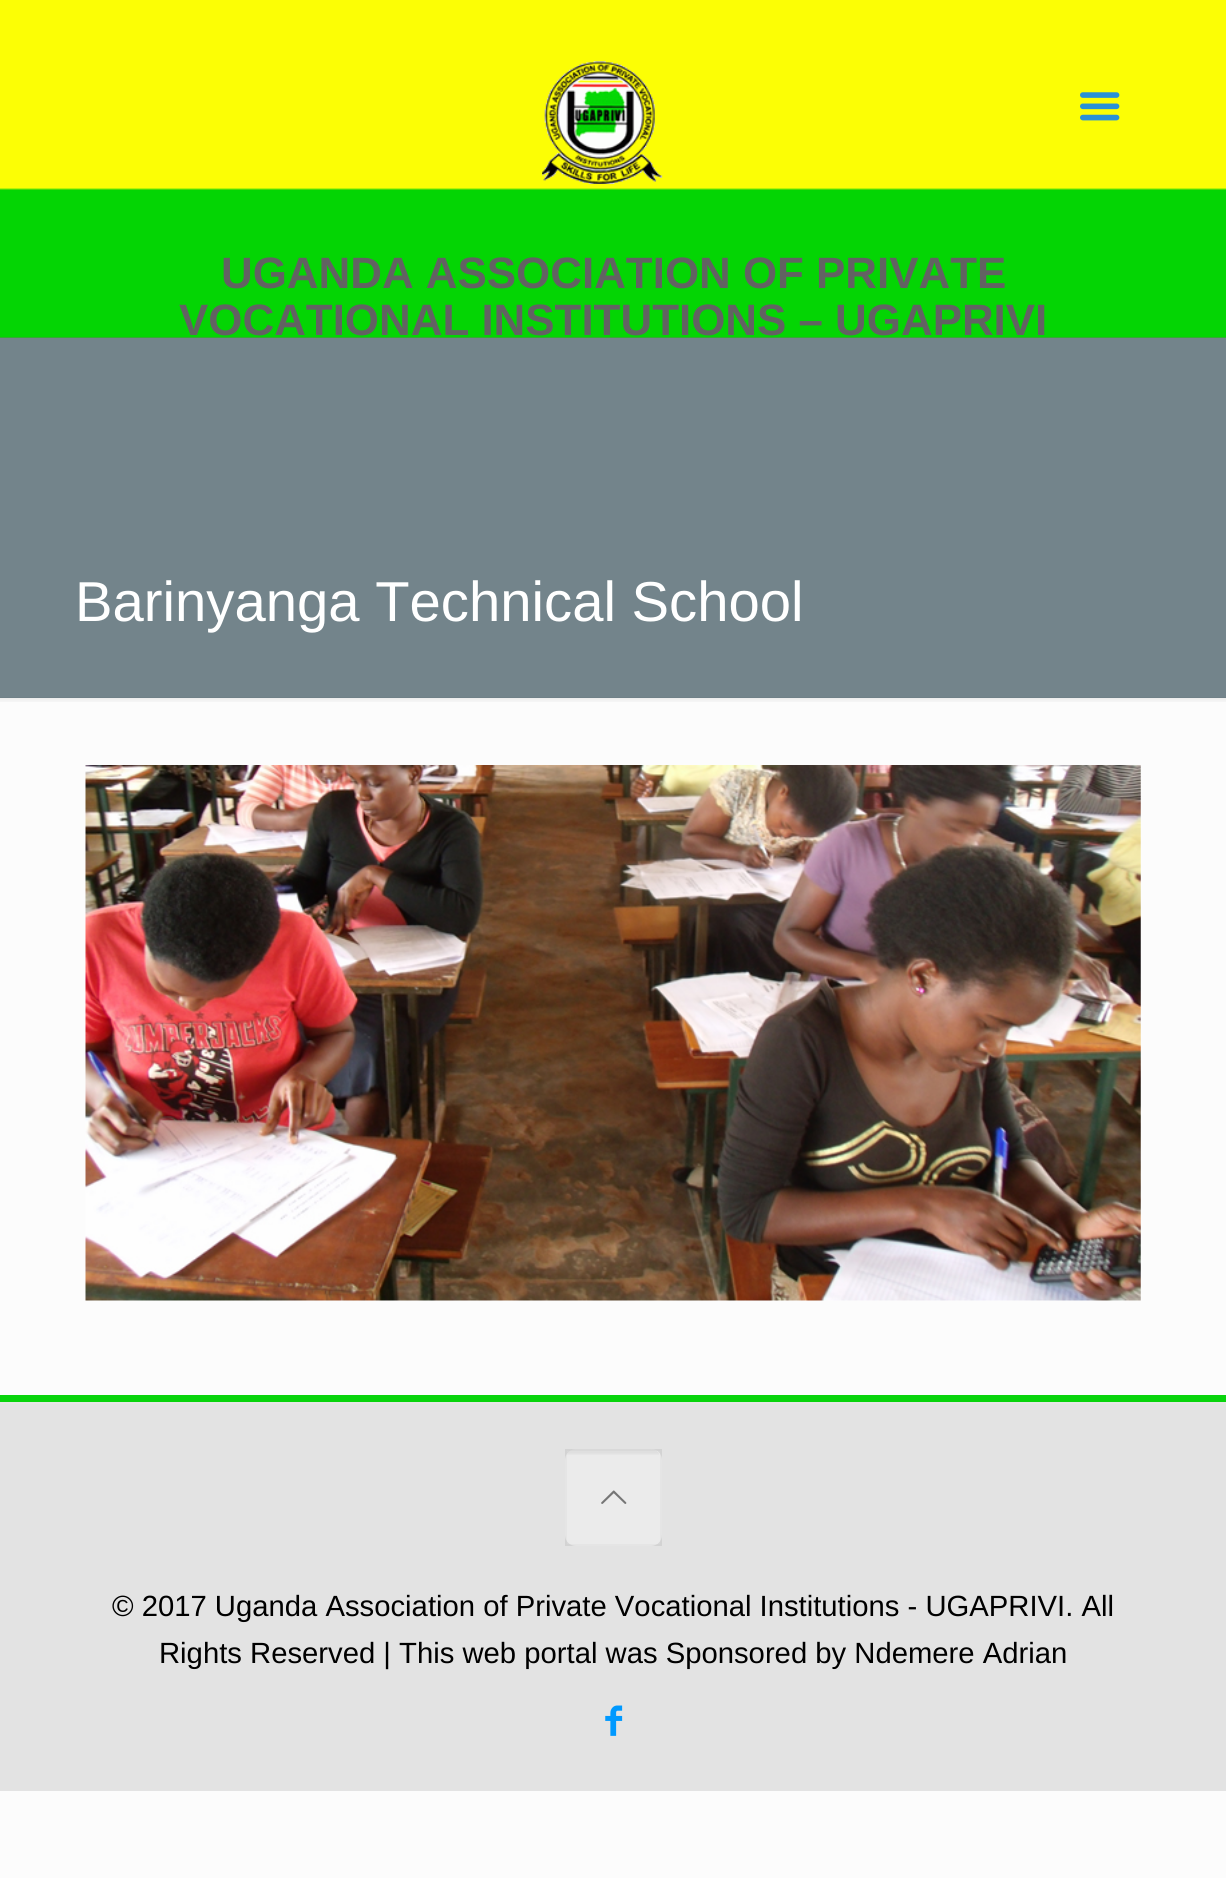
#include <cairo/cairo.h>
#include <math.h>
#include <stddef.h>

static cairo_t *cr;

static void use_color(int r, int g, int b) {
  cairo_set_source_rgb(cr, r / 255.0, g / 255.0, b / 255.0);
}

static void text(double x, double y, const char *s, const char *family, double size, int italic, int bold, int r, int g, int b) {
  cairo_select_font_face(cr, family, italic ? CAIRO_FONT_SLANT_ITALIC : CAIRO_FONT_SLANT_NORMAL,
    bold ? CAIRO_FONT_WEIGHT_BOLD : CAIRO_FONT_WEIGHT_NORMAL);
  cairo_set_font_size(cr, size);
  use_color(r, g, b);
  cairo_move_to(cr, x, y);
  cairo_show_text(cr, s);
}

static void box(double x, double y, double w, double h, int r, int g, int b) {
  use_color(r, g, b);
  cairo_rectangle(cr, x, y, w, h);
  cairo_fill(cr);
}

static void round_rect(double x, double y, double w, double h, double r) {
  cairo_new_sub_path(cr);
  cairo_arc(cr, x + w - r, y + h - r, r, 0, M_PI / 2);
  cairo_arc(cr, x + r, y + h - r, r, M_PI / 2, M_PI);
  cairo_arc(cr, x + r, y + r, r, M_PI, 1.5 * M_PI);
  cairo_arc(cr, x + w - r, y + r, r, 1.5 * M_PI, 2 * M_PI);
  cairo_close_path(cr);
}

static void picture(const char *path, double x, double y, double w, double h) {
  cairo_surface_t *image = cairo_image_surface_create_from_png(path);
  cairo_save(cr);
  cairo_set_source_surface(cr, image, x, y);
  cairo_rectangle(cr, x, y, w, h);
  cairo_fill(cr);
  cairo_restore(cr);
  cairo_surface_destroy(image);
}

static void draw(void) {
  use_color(252, 252, 252);
  cairo_paint(cr);
  box(0, 337, 1226, 1, 104, 124, 98);
  picture("img_01.png", 0, 0, 1226, 338);
  picture("img_02.png", 542, 61, 121, 123);
  picture("img_03.png", 1080, 92, 40, 29);
  box(0, 338, 1226, 360, 115, 132, 139);
  picture("img_04.png", 0, 697, 1226, 5);
  picture("img_05.png", 85, 765, 1056, 536);
  box(0, 1404, 1226, 387, 227, 227, 227);
  box(0, 1395, 1226, 7, 8, 212, 12);
  box(0, 1402, 1226, 2, 230, 230, 230);
  use_color(247, 247, 247);
  round_rect(565, 1449, 97, 97, 11);
  cairo_fill(cr);
  picture("img_06.png", 567, 1449, 92, 6);
  cairo_rectangle(cr, 566, 1450, 95, 95);
  cairo_set_source_rgba(cr, 0, 0, 0, 0.03);
  cairo_stroke(cr);
  cairo_set_source_rgba(cr, 0, 0, 0, 0.05);
  cairo_rectangle(cr, 565, 1449, 97, 97);
  cairo_fill(cr);
  picture("img_07.png", 601, 1490, 26, 14);
  picture("img_08.png", 605, 1705, 18, 31);
  text(221, 288, "UGANDA ASSOCIATION OF PRIVATE", "Liberation Sans", 43.9, 0, 1, 98, 98, 98);
  text(179, 335, "VOCATIONAL INSTITUTIONS – UGAPRIVI", "Liberation Sans", 43.9, 0, 1, 98, 98, 98);
  text(75, 621, "Barinyanga Technical School", "Liberation Sans", 56.25, 0, 0, 255, 255, 255);
  text(112, 1616, "© 2017 Uganda Association of Private Vocational Institutions - UGAPRIVI. All", "Liberation Sans", 29.25, 0, 0, 0, 0, 0);
  text(159, 1663, "Rights Reserved | This web portal was Sponsored by Ndemere Adrian", "Liberation Sans", 29.25, 0, 0, 0, 0, 0);
}

int main(void) {
  cairo_surface_t *surface = cairo_image_surface_create(CAIRO_FORMAT_RGB24, 1226, 1878);
  cr = cairo_create(surface);
  cairo_font_options_t *options = cairo_font_options_create();
  cairo_font_options_set_hint_metrics(options, CAIRO_HINT_METRICS_OFF);
  cairo_font_options_set_hint_style(options, CAIRO_HINT_STYLE_NONE);
  cairo_set_font_options(cr, options);
  cairo_set_miter_limit(cr, 4);
  draw();
  cairo_surface_write_to_png(surface, "out.png");
  cairo_font_options_destroy(options);
  cairo_destroy(cr);
  cairo_surface_destroy(surface);
  return 0;
}
